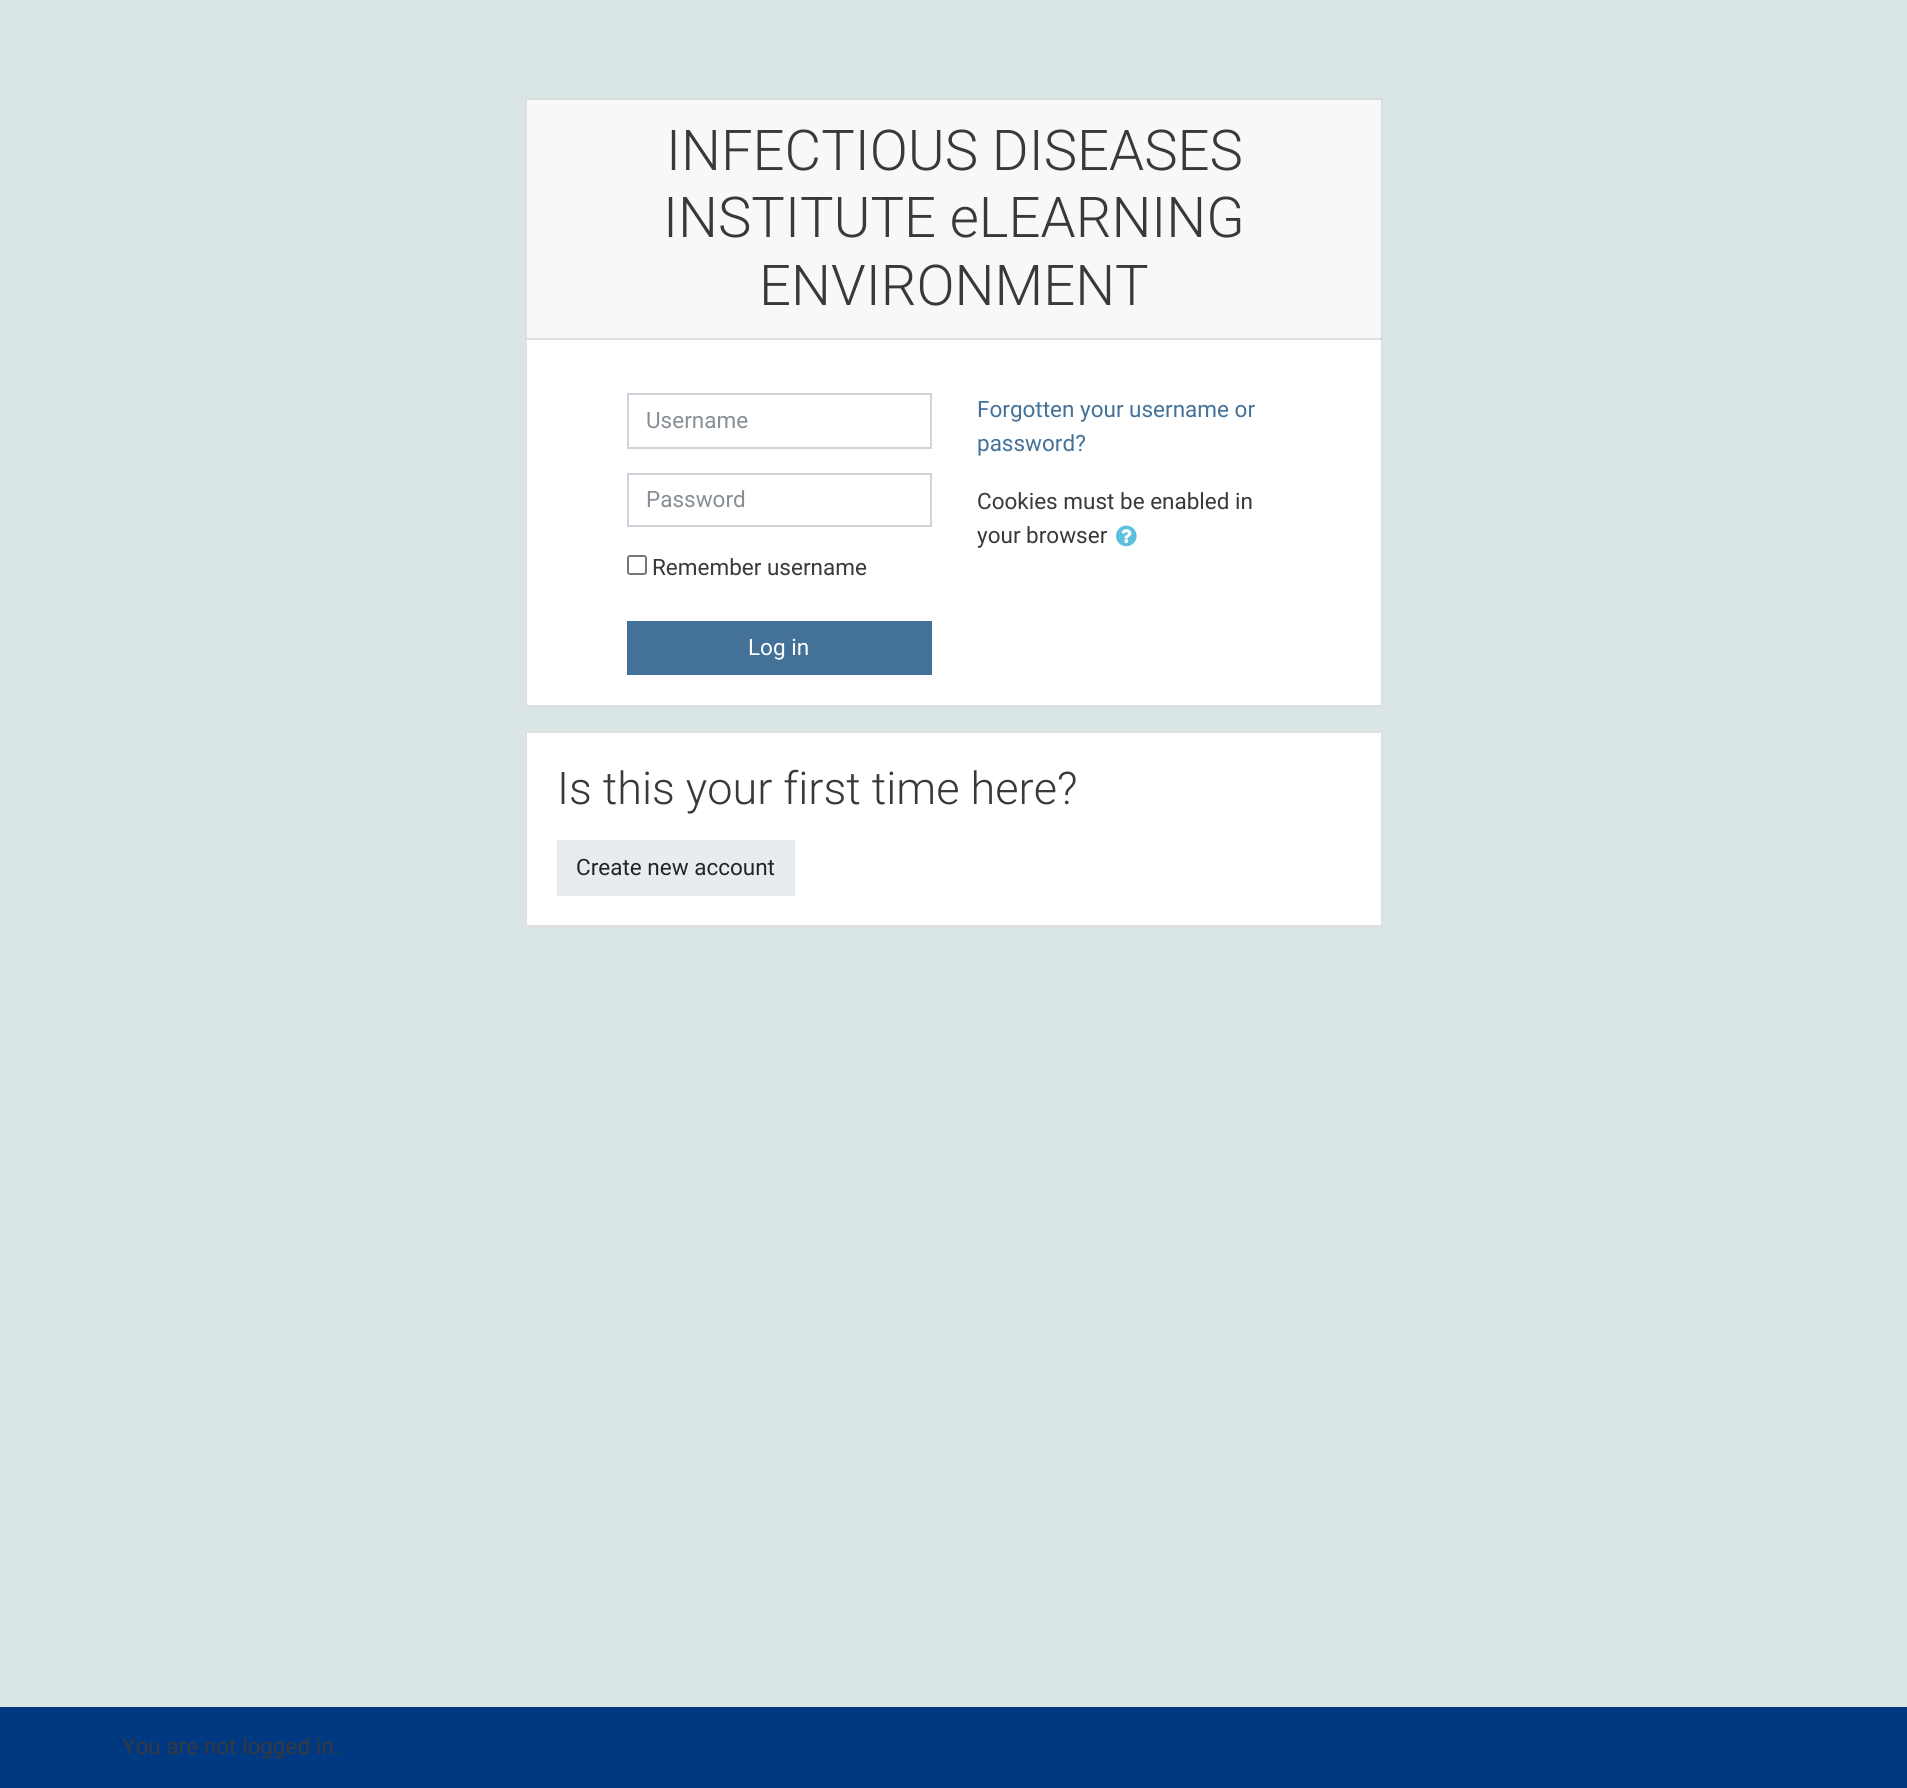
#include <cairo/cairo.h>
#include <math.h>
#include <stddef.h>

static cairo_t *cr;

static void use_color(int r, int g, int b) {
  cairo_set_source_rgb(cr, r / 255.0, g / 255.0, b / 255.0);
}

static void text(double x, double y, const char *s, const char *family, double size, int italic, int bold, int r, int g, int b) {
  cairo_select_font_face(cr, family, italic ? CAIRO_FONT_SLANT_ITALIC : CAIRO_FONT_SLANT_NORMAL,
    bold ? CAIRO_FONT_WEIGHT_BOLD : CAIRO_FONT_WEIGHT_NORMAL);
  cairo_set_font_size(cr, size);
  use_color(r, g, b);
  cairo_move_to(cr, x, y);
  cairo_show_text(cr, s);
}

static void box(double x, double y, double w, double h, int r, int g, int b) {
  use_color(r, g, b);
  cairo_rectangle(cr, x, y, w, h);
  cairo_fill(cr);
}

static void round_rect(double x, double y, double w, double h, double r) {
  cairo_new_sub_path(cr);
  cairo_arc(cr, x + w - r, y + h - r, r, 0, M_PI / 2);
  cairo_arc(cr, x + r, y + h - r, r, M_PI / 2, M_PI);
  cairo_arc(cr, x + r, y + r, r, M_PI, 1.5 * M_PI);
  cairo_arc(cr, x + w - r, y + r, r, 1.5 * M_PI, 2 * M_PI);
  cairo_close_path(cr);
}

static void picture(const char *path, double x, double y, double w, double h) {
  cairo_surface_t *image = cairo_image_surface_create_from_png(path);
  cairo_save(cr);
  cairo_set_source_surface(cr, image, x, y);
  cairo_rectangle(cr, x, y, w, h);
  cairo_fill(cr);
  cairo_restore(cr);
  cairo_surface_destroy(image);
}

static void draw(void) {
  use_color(218, 230, 229);
  cairo_paint(cr);
  use_color(255, 255, 255);
  cairo_rectangle(cr, 526, 99, 856, 607);
  cairo_fill_preserve(cr);
  use_color(223, 223, 223);
  cairo_stroke(cr);
  cairo_set_source_rgba(cr, 0, 0, 0, 0.03);
  cairo_rectangle(cr, 527, 99, 855, 240);
  cairo_fill(cr);
  cairo_set_source_rgba(cr, 0, 0, 0, 0.12);
  cairo_rectangle(cr, 527, 338, 855, 2);
  cairo_fill(cr);
  cairo_rectangle(cr, 628, 394, 303, 54);
  use_color(206, 212, 218);
  cairo_stroke(cr);
  cairo_rectangle(cr, 628, 474, 303, 52);
  cairo_stroke(cr);
  round_rect(628, 556, 18, 18, 2);
  use_color(118, 118, 118);
  cairo_stroke(cr);
  box(627, 621, 305, 54, 68, 113, 152);
  picture("img_01.png", 1116, 525, 21, 22);
  use_color(255, 255, 255);
  cairo_rectangle(cr, 526, 732, 856, 194);
  cairo_fill_preserve(cr);
  use_color(223, 223, 223);
  cairo_stroke(cr);
  box(557, 840, 238, 56, 233, 236, 239);
  box(0, 1707, 1907, 81, 0, 56, 130);
  text(666, 170, "INFECTIOUS DISEASES", "Roboto Light", 56.25, 0, 0, 55, 58, 60);
  text(663, 237, "INSTITUTE eLEARNING", "Roboto Light", 56.25, 0, 0, 55, 58, 60);
  text(759, 305, "ENVIRONMENT", "Roboto Light", 56.25, 0, 0, 55, 58, 60);
  text(646, 428, "Username", "Roboto", 22.5, 0, 0, 134, 142, 150);
  text(646, 507, "Password", "Roboto", 22.5, 0, 0, 134, 142, 150);
  text(652, 575, "Remember username", "Roboto", 22.5, 0, 0, 55, 58, 60);
  text(748, 655, "Log in", "Roboto", 22.5, 0, 0, 255, 255, 255);
  text(977, 417, "Forgotten your username or", "Roboto", 22.5, 0, 0, 68, 113, 152);
  text(977, 451, "password?", "Roboto", 22.5, 0, 0, 68, 113, 152);
  text(977, 509, "Cookies must be enabled in", "Roboto", 22.5, 0, 0, 55, 58, 60);
  text(977, 543, "your browser", "Roboto", 22.5, 0, 0, 55, 58, 60);
  text(557, 804, "Is this your first time here?", "Roboto Light", 45, 0, 0, 55, 58, 60);
  text(576, 875, "Create new account", "Roboto", 22.5, 0, 0, 33, 37, 41);
  text(122, 1754, "You are not logged in.", "Roboto", 22.5, 0, 0, 55, 58, 60);
}

int main(void) {
  cairo_surface_t *surface = cairo_image_surface_create(CAIRO_FORMAT_RGB24, 1907, 1788);
  cr = cairo_create(surface);
  cairo_font_options_t *options = cairo_font_options_create();
  cairo_font_options_set_hint_metrics(options, CAIRO_HINT_METRICS_OFF);
  cairo_font_options_set_hint_style(options, CAIRO_HINT_STYLE_NONE);
  cairo_set_font_options(cr, options);
  cairo_set_miter_limit(cr, 4);
  draw();
  cairo_surface_write_to_png(surface, "out.png");
  cairo_font_options_destroy(options);
  cairo_destroy(cr);
  cairo_surface_destroy(surface);
  return 0;
}
